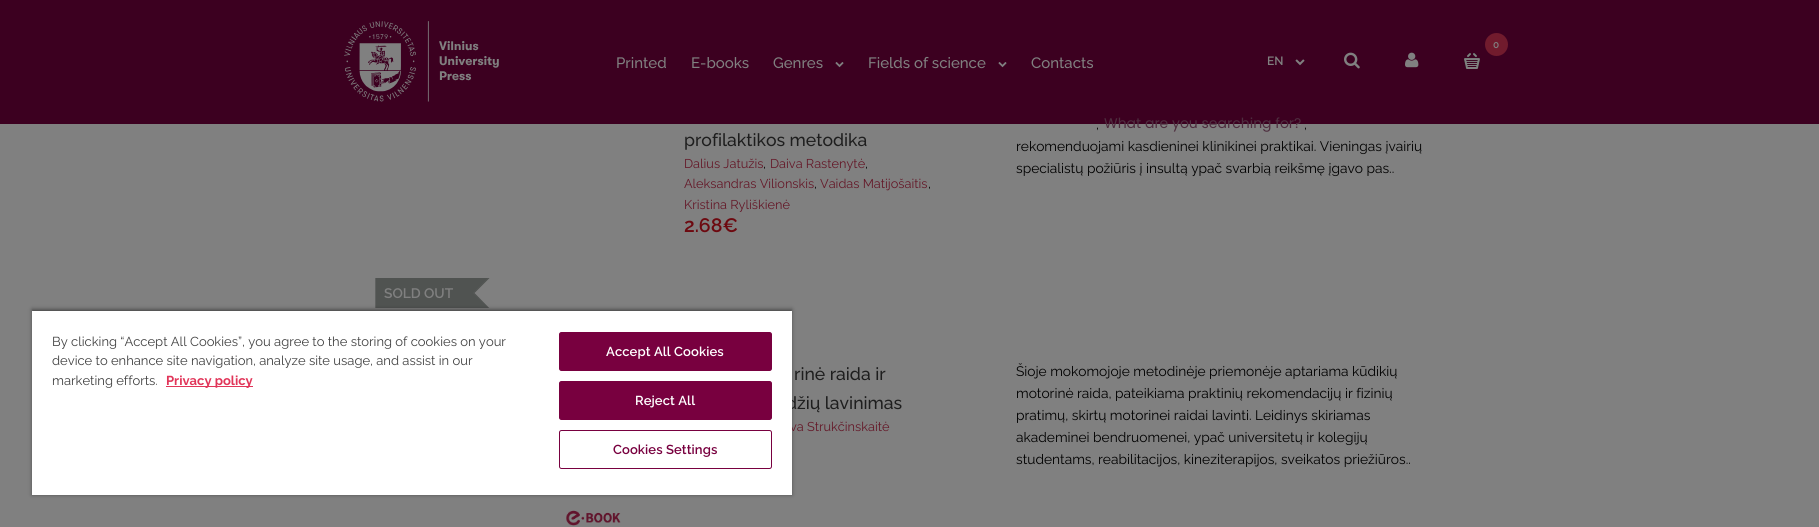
#include <cairo/cairo.h>
#include <math.h>
#include <stddef.h>

static cairo_t *cr;

static void use_color(int r, int g, int b) {
  cairo_set_source_rgb(cr, r / 255.0, g / 255.0, b / 255.0);
}

static void text(double x, double y, const char *s, const char *family, double size, int italic, int bold, int r, int g, int b) {
  cairo_select_font_face(cr, family, italic ? CAIRO_FONT_SLANT_ITALIC : CAIRO_FONT_SLANT_NORMAL,
    bold ? CAIRO_FONT_WEIGHT_BOLD : CAIRO_FONT_WEIGHT_NORMAL);
  cairo_set_font_size(cr, size);
  use_color(r, g, b);
  cairo_move_to(cr, x, y);
  cairo_show_text(cr, s);
}

static void spaced_text(double x, double y, const char *s, double letter, double word) {
  cairo_move_to(cr, x, y);
  while (*s) {
    char ch[5] = {0};
    int n = 0;
    do ch[n++] = *s++; while ((*s & 0xC0) == 0x80);
    cairo_show_text(cr, ch);
    cairo_rel_move_to(cr, letter + word * (*ch == ' '), 0);
  }
}

static void box(double x, double y, double w, double h, int r, int g, int b) {
  use_color(r, g, b);
  cairo_rectangle(cr, x, y, w, h);
  cairo_fill(cr);
}

static void round_rect(double x, double y, double w, double h, double r) {
  cairo_new_sub_path(cr);
  cairo_arc(cr, x + w - r, y + h - r, r, 0, M_PI / 2);
  cairo_arc(cr, x + r, y + h - r, r, M_PI / 2, M_PI);
  cairo_arc(cr, x + r, y + r, r, M_PI, 1.5 * M_PI);
  cairo_arc(cr, x + w - r, y + r, r, 1.5 * M_PI, 2 * M_PI);
  cairo_close_path(cr);
}

static void shadow(double x, double y, double w, double h, double r, double blur, double alpha) {
  cairo_push_group_with_content(cr, CAIRO_CONTENT_ALPHA);
  cairo_set_operator(cr, CAIRO_OPERATOR_SOURCE);
  for (int i = 15; i >= -15 && fmin(w, h) + blur * i / 3 > 0; i -= 2) {
    double e = blur * i / 6;
    cairo_set_source_rgba(cr, 0, 0, 0, alpha * erfc((i - 1) / 8.5) / 2);
    round_rect(x - e, y - e, w + 2 * e, h + 2 * e, fmax(0, fmin(r + e + blur * .6, fmin(w, h) / 2 + e)));
    cairo_fill(cr);
  }
  cairo_pattern_t *soft = cairo_pop_group(cr);
  cairo_mask(cr, soft);
  cairo_pattern_destroy(soft);
}

static void picture(const char *path, double x, double y, double w, double h) {
  cairo_surface_t *image = cairo_image_surface_create_from_png(path);
  cairo_save(cr);
  cairo_set_source_surface(cr, image, x, y);
  cairo_rectangle(cr, x, y, w, h);
  cairo_fill(cr);
  cairo_restore(cr);
  cairo_surface_destroy(image);
}

static void draw(void) {
  use_color(128, 128, 128);
  cairo_paint(cr);
  box(0, 0, 1819, 124, 60, 0, 32);
  picture("img_01.png", 344, 21, 155, 81);
  picture("img_02.png", 835, 62, 9, 6);
  picture("img_02.png", 998, 62, 9, 6);
  use_color(113, 27, 45);
  cairo_arc(cr, 1496.5, 44.5, 11.5, 0, 2 * M_PI);
  cairo_fill(cr);
  picture("img_03.png", 1464, 53, 16, 16);
  picture("img_04.png", 1464, 53, 16, 16);
  picture("img_05.png", 1295, 59, 10, 7);
  picture("img_06.png", 1344, 52, 16, 17);
  picture("img_07.png", 1405, 52, 14, 16);
  cairo_save(cr);
  cairo_rectangle(cr, 375, 278, 126, 30);
  cairo_clip(cr);
  use_color(80, 83, 81);
  cairo_new_path(cr);
  cairo_move_to(cr, 376, 265);
  cairo_line_to(cr, 501, 265);
  cairo_line_to(cr, 473, 293);
  cairo_line_to(cr, 501, 321);
  cairo_line_to(cr, 376, 321);
  cairo_close_path(cr);
  cairo_fill(cr);
  cairo_new_path(cr);
  cairo_move_to(cr, 376, 265.5);
  cairo_line_to(cr, 501, 265.5);
  cairo_line_to(cr, 473.5, 293);
  cairo_line_to(cr, 501, 321);
  cairo_line_to(cr, 376, 321);
  cairo_close_path(cr);
  cairo_set_line_width(cr, 1.4);
  cairo_stroke(cr);
  cairo_restore(cr);
  picture("img_08.png", 566, 510, 55, 16);
  use_color(0, 0, 0);
  shadow(32, 309, 760, 186, 0, 2, 0.35);
  cairo_save(cr);
  cairo_rectangle(cr, 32, 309, 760, 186);
  cairo_clip(cr);
  shadow(32, 311, 760, 184, 0, 2, 0.2);
  cairo_restore(cr);
  text(616, 68, "Printed", "Raleway Medium", 15, 0, 0, 128, 128, 128);
  text(691, 68, "E-books", "Raleway Medium", 15, 0, 0, 128, 128, 128);
  text(773, 68, "Genres", "Raleway Medium", 15, 0, 0, 128, 128, 128);
  text(868, 68, "Fields of science", "Raleway Medium", 15, 0, 0, 128, 128, 128);
  text(1031, 68, "Contacts", "Raleway Medium", 15, 0, 0, 128, 128, 128);
  text(1493, 48, "0", "Raleway SemiBold", 10, 0, 0, 128, 128, 128);
  text(1267, 65, "EN", "Raleway SemiBold", 12, 0, 0, 128, 128, 128);
  text(1104, 128, "What are you searching for?", "Poppins", 14, 0, 0, 78, 46, 63);
  text(684, 146, "profilaktikos metodika", "Raleway Medium", 17.6, 0, 0, 30, 30, 30);
  text(684, 168, "Dalius Jatužis", "Raleway", 12.75, 0, 0, 100, 24, 40);
  text(763, 168, ",", "Raleway", 12.75, 0, 0, 0, 0, 0);
  text(770, 168, "Daiva Rastenytė", "Raleway", 12.75, 0, 0, 100, 24, 40);
  text(865, 168, ",", "Raleway", 12.75, 0, 0, 0, 0, 0);
  text(684, 188, "Aleksandras Vilionskis", "Raleway", 12.75, 0, 0, 100, 24, 40);
  text(814, 188, ",", "Raleway", 12.75, 0, 0, 0, 0, 0);
  text(820, 188, "Vaidas Matijošaitis", "Raleway", 12.75, 0, 0, 100, 24, 40);
  text(928, 188, ",", "Raleway", 12.75, 0, 0, 0, 0, 0);
  text(684, 209, "Kristina Ryliškienė", "Raleway", 12.75, 0, 0, 100, 24, 40);
  text(684, 232, "2.68€", "Raleway SemiBold", 19.5, 0, 0, 109, 9, 16);
  text(1096, 129, ",", "Raleway", 13.75, 0, 0, 0, 0, 0);
  text(1304, 129, ",", "Raleway", 13.75, 0, 0, 0, 0, 0);
  text(1016, 151, "rekomenduojami kasdieninei klinikinei praktikai. Vieningas įvairių", "Raleway", 13.75, 0, 0, 0, 0, 0);
  text(1016, 173, "specialistų požiūris į insultą ypač svarbią reikšmę įgavo pas..", "Raleway", 13.75, 0, 0, 0, 0, 0);
  text(384, 298, "SOLD OUT", "Raleway SemiBold", 13.75, 0, 0, 128, 128, 128);
  text(794, 380, "rinė raida ir", "Raleway Medium", 17.6, 0, 0, 30, 30, 30);
  text(786, 409, "džių lavinimas", "Raleway Medium", 17.6, 0, 0, 30, 30, 30);
  text(790, 431, "va Strukčinskaitė", "Raleway", 12.75, 0, 0, 100, 24, 40);
  text(1016, 376, "Šioje mokomojoje metodinėje priemonėje aptariama kūdikių", "Raleway", 13.75, 0, 0, 0, 0, 0);
  text(1016, 398, "motorinė raida, pateikiama praktinių rekomendacijų ir fizinių", "Raleway", 13.75, 0, 0, 0, 0, 0);
  text(1016, 420, "pratimų, skirtų motorinei raidai lavinti. Leidinys skiriamas", "Raleway", 13.75, 0, 0, 0, 0, 0);
  text(1016, 442, "akademinei bendruomenei, ypač universitetų ir kolegijų", "Raleway", 13.75, 0, 0, 0, 0, 0);
  text(1016, 464, "studentams, reabilitacijos, kineziterapijos, sveikatos priežiūros..", "Raleway", 13.75, 0, 0, 0, 0, 0);
  box(32, 311, 760, 184, 255, 255, 255);
  text(52, 346, "By clicking “Accept All Cookies”, you agree to the storing of cookies on your", "Raleway", 13, 0, 0, 65, 65, 65);
  text(52, 365, "device to enhance site navigation, analyze site usage, and assist in our", "Raleway", 13, 0, 0, 65, 65, 65);
  text(52, 385, "marketing efforts.", "Raleway", 13, 0, 0, 65, 65, 65);
  box(166, 386, 87, 1, 225, 53, 89);
  text(166, 385, "Privacy policy", "Raleway", 13, 0, 1, 225, 53, 89);
  use_color(120, 0, 63);
  round_rect(559.5, 332.5, 212, 38, 2);
  cairo_fill_preserve(cr);
  cairo_set_line_width(cr, 1);
  cairo_stroke(cr);
  cairo_select_font_face(cr, "Raleway SemiBold", CAIRO_FONT_SLANT_NORMAL, CAIRO_FONT_WEIGHT_NORMAL);
  use_color(255, 255, 255);
  spaced_text(606, 356, "Accept All Cookies", 0.1, 0);
  use_color(120, 0, 63);
  round_rect(559.5, 381.5, 212, 38, 2);
  cairo_fill_preserve(cr);
  cairo_stroke(cr);
  use_color(255, 255, 255);
  spaced_text(635, 405, "Reject All", 0.1, 0);
  round_rect(559.5, 430.5, 212, 38, 2);
  use_color(120, 0, 63);
  cairo_stroke(cr);
  spaced_text(613, 454, "Cookies Settings", 0.1, 0);
}

int main(void) {
  cairo_surface_t *surface = cairo_image_surface_create(CAIRO_FORMAT_RGB24, 1819, 527);
  cr = cairo_create(surface);
  cairo_font_options_t *options = cairo_font_options_create();
  cairo_font_options_set_hint_metrics(options, CAIRO_HINT_METRICS_OFF);
  cairo_font_options_set_hint_style(options, CAIRO_HINT_STYLE_NONE);
  cairo_set_font_options(cr, options);
  cairo_set_miter_limit(cr, 4);
  draw();
  cairo_surface_write_to_png(surface, "out.png");
  cairo_font_options_destroy(options);
  cairo_destroy(cr);
  cairo_surface_destroy(surface);
  return 0;
}
